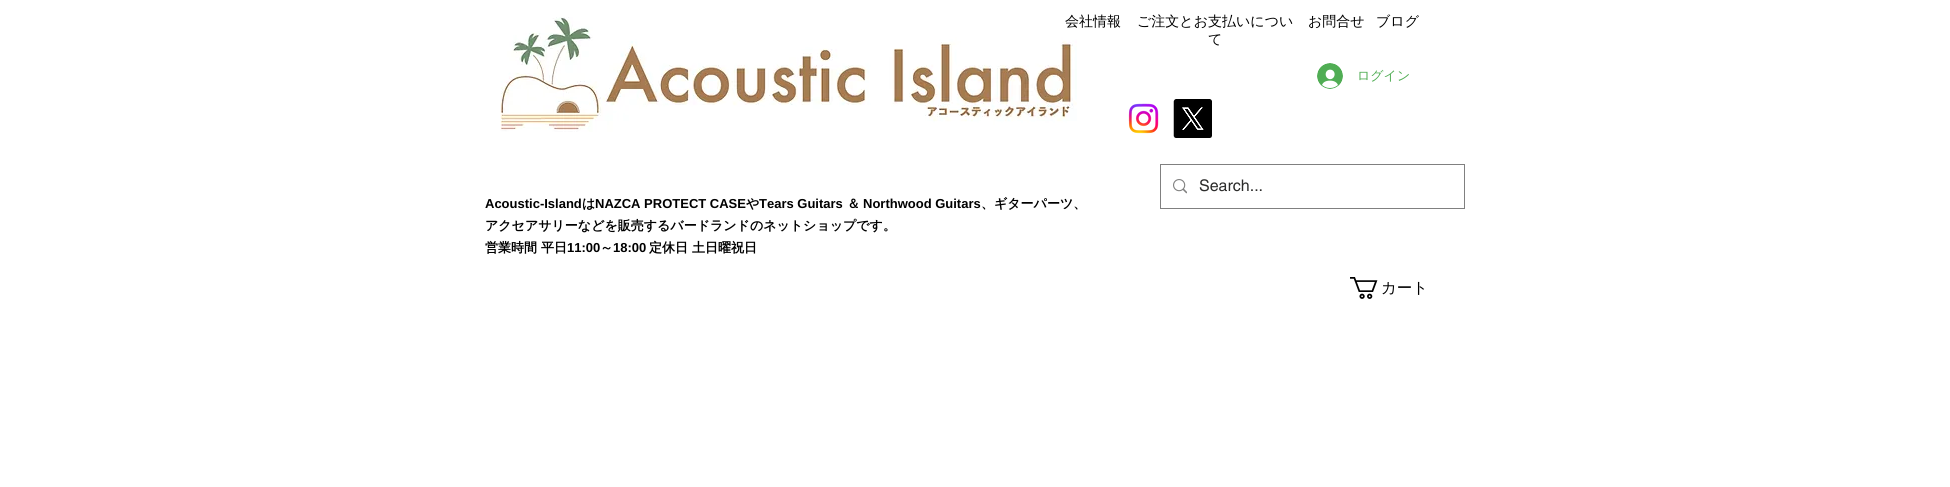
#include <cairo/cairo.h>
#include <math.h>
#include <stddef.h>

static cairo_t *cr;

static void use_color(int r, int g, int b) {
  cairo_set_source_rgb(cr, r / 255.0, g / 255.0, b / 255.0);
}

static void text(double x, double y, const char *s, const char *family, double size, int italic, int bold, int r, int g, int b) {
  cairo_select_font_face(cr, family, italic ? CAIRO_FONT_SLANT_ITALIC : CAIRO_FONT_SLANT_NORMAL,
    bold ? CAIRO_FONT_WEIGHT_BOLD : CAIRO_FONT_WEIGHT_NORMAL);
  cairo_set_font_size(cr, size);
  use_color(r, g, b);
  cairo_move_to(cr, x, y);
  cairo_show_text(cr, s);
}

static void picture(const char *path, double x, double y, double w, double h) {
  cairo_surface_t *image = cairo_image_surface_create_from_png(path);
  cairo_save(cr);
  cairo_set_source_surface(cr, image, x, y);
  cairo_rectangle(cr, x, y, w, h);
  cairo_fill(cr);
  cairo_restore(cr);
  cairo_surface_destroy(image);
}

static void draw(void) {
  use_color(255, 255, 255);
  cairo_paint(cr);
  picture("img_01.png", 500, 17, 577, 115);
  picture("img_02.png", 1128, 103, 31, 31);
  picture("img_03.png", 1173, 99, 39, 39);
  picture("img_04.png", 1350, 277, 28, 22);
  picture("img_05.png", 1317, 63, 26, 26);
  cairo_rectangle(cr, 1160.5, 164.5, 304, 44);
  use_color(128, 128, 128);
  cairo_set_line_width(cr, 1);
  cairo_stroke(cr);
  picture("img_06.png", 1173, 179, 14, 15);
  text(1065, 26, "会社情報", "WenQuanYi Zen Hei Medium", 14, 0, 0, 0, 0, 0);
  text(1137, 26, "ご注文とお支払いについ", "WenQuanYi Zen Hei Medium", 14, 0, 0, 0, 0, 0);
  text(1208, 44, "て", "WenQuanYi Zen Hei Medium", 14, 0, 0, 0, 0, 0);
  text(1308, 26, "お問合せ", "WenQuanYi Zen Hei Medium", 14, 0, 0, 0, 0, 0);
  text(1376, 26, "ブログ", "WenQuanYi Zen Hei Medium", 14, 0, 0, 0, 0, 0);
  text(485, 208, "Acoustic-Island", "Liberation Sans", 13, 0, 1, 0, 0, 0);
  text(582, 208, "は", "WenQuanYi Zen Hei", 13, 0, 1, 0, 0, 0);
  text(595, 208, "NAZCA PROTECT CASE", "Liberation Sans", 13, 0, 1, 0, 0, 0);
  text(746, 208, "や", "WenQuanYi Zen Hei", 13, 0, 1, 0, 0, 0);
  text(759, 208, "Tears Guitars", "Liberation Sans", 13, 0, 1, 0, 0, 0);
  text(847, 208, "＆", "WenQuanYi Zen Hei", 13, 0, 1, 0, 0, 0);
  text(863, 208, "Northwood Guitars", "Liberation Sans", 13, 0, 1, 0, 0, 0);
  text(981, 208, "、ギターパーツ、", "WenQuanYi Zen Hei", 13, 0, 1, 0, 0, 0);
  text(485, 230, "アクセアサリーなどを販売するバードランドのネットショップです。", "WenQuanYi Zen Hei", 13, 0, 1, 0, 0, 0);
  text(485, 252, "営業時間 平日", "WenQuanYi Zen Hei", 13, 0, 1, 0, 0, 0);
  text(567, 252, "11:00", "Liberation Sans", 13, 0, 1, 0, 0, 0);
  text(600, 252, "～", "WenQuanYi Zen Hei", 13, 0, 1, 0, 0, 0);
  text(613, 252, "18:00", "Liberation Sans", 13, 0, 1, 0, 0, 0);
  text(649, 252, "定休日 土日曜祝日", "WenQuanYi Zen Hei", 13, 0, 1, 0, 0, 0);
  text(1381, 293, "カート", "WenQuanYi Zen Hei Medium", 15.5, 0, 0, 0, 0, 0);
  text(1357, 80, "ログイン", "WenQuanYi Zen Hei Medium", 13, 0, 0, 80, 173, 84);
  text(1199, 191, "Search...", "helvetica", 16, 0, 0, 44, 44, 43);
}

int main(void) {
  cairo_surface_t *surface = cairo_image_surface_create(CAIRO_FORMAT_RGB24, 1950, 487);
  cr = cairo_create(surface);
  cairo_font_options_t *options = cairo_font_options_create();
  cairo_font_options_set_hint_metrics(options, CAIRO_HINT_METRICS_OFF);
  cairo_font_options_set_hint_style(options, CAIRO_HINT_STYLE_NONE);
  cairo_set_font_options(cr, options);
  cairo_set_miter_limit(cr, 4);
  draw();
  cairo_surface_write_to_png(surface, "out.png");
  cairo_font_options_destroy(options);
  cairo_destroy(cr);
  cairo_surface_destroy(surface);
  return 0;
}
